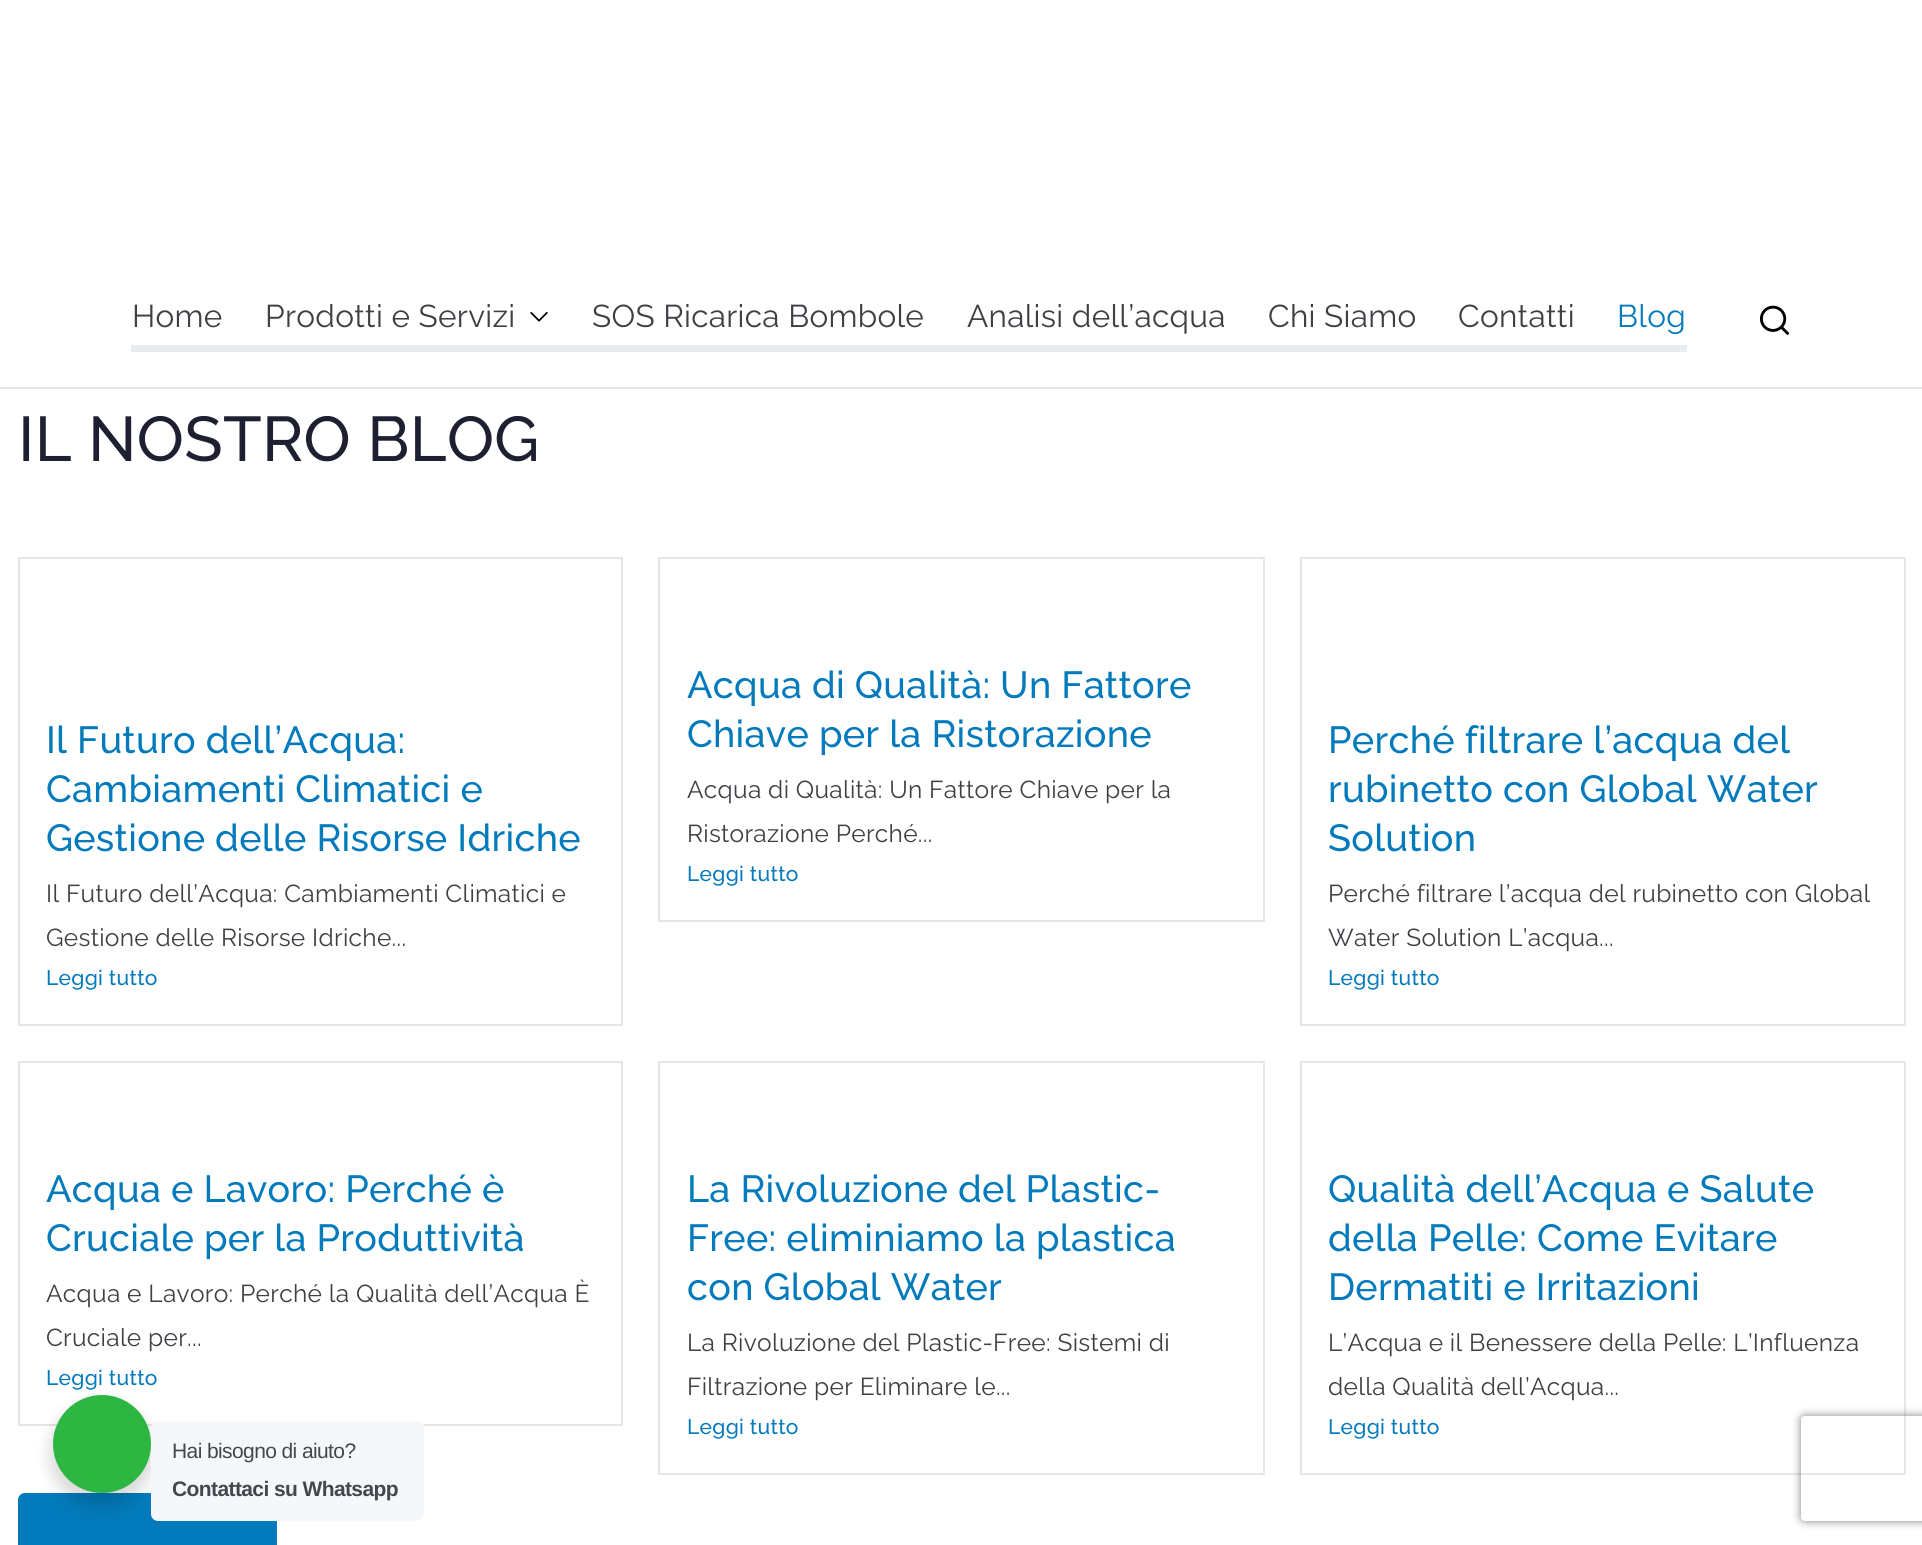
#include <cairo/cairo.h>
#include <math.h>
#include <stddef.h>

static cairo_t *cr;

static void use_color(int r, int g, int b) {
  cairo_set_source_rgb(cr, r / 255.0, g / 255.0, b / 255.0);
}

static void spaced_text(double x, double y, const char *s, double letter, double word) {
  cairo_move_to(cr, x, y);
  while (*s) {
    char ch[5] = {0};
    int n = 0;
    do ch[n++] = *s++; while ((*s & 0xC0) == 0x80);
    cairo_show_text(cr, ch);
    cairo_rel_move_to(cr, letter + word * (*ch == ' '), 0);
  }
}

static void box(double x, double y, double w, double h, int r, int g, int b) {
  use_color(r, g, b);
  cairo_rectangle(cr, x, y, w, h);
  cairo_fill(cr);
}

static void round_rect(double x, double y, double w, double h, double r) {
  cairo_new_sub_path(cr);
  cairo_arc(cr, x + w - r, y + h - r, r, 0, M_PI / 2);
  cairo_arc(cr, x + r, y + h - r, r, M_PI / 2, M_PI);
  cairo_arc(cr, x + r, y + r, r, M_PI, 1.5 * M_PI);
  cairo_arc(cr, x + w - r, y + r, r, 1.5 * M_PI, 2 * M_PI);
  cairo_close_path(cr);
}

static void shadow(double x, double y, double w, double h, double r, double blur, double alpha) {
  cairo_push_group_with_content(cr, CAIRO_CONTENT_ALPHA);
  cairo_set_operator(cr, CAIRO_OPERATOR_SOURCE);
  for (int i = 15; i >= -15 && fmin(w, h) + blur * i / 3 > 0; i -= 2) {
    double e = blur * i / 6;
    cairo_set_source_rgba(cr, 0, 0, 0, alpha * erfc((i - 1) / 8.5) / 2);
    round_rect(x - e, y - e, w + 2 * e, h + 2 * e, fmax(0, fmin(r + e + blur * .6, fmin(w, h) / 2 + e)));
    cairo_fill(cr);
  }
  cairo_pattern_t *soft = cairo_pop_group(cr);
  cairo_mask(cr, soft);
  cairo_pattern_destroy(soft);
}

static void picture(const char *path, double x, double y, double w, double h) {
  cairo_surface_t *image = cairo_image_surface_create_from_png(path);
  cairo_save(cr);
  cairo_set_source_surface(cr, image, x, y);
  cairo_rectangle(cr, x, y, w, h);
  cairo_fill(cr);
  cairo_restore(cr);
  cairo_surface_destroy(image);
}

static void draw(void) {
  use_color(228, 228, 231);
  cairo_paint(cr);
  box(0, 0, 1922, 387, 255, 255, 255);
  box(131, 345, 1556, 7, 233, 236, 239);
  picture("img_01.png", 530, 312, 18, 10);
  picture("img_02.png", 1759, 305, 31, 30);
  box(0, 389, 1922, 1156, 255, 255, 255);
  cairo_rectangle(cr, 19, 558, 603, 467);
  use_color(230, 230, 230);
  cairo_stroke(cr);
  cairo_rectangle(cr, 659, 558, 605, 363);
  cairo_stroke(cr);
  cairo_rectangle(cr, 1301, 558, 604, 467);
  cairo_stroke(cr);
  cairo_rectangle(cr, 19, 1062, 603, 363);
  cairo_stroke(cr);
  cairo_rectangle(cr, 659, 1062, 605, 412);
  cairo_stroke(cr);
  cairo_rectangle(cr, 1301, 1062, 604, 412);
  cairo_stroke(cr);
  use_color(2, 122, 187);
  round_rect(18, 1493, 259, 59, 7);
  cairo_fill(cr);
  use_color(0, 0, 0);
  shadow(49, 1402, 105, 105, 52.5, 7, 0.14);
  use_color(45, 183, 66);
  cairo_arc(cr, 102, 1444, 49, 0, 2 * M_PI);
  cairo_fill(cr);
  use_color(245, 247, 249);
  round_rect(151, 1421, 273, 100, 7);
  cairo_fill(cr);
  cairo_save(cr);
  cairo_set_fill_rule(cr, CAIRO_FILL_RULE_EVEN_ODD);
  cairo_new_path(cr);
  cairo_move_to(cr, 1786, 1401);
  cairo_line_to(cr, 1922, 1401);
  cairo_line_to(cr, 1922, 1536);
  cairo_line_to(cr, 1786, 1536);
  cairo_close_path(cr);
  cairo_move_to(cr, 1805, 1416);
  cairo_line_to(cr, 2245, 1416);
  cairo_curve_to(cr, 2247, 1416, 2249, 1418, 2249, 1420);
  cairo_line_to(cr, 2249, 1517);
  cairo_curve_to(cr, 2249, 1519, 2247, 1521, 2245, 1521);
  cairo_line_to(cr, 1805, 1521);
  cairo_curve_to(cr, 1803, 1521, 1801, 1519, 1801, 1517);
  cairo_line_to(cr, 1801, 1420);
  cairo_curve_to(cr, 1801, 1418, 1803, 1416, 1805, 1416);
  cairo_close_path(cr);
  cairo_clip(cr);
  use_color(128, 128, 128);
  shadow(1801, 1416, 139, 105, 4, 4.5, 1);
  cairo_restore(cr);
  cairo_select_font_face(cr, "Raleway", CAIRO_FONT_SLANT_NORMAL, CAIRO_FONT_WEIGHT_NORMAL);
  cairo_set_font_size(cr, 31.5);
  use_color(63, 63, 70);
  spaced_text(132, 327, "Home", 0.3, 0);
  spaced_text(265, 327, "Prodotti e Servizi", 0.3, 0);
  spaced_text(592, 327, "SOS Ricarica Bombole", 0.3, 0);
  spaced_text(967, 327, "Analisi dell’acqua", 0.3, 0);
  spaced_text(1268, 327, "Chi Siamo", 0.3, 0);
  spaced_text(1458, 327, "Contatti", 0.3, 0);
  use_color(2, 122, 187);
  spaced_text(1617, 327, "Blog", 0.3, 0);
  cairo_select_font_face(cr, "Raleway Medium", CAIRO_FONT_SLANT_NORMAL, CAIRO_FONT_WEIGHT_NORMAL);
  cairo_set_font_size(cr, 63);
  use_color(31, 31, 50);
  spaced_text(18, 461, "IL NOSTRO BLOG", 0.3, 0);
  cairo_set_font_size(cr, 37.75);
  use_color(2, 122, 187);
  spaced_text(46, 753, "Il Futuro dell’Acqua:", 0.3, 0);
  spaced_text(46, 802, "Cambiamenti Climatici e", 0.3, 0);
  spaced_text(46, 851, "Gestione delle Risorse Idriche", 0.3, 0);
  cairo_select_font_face(cr, "Raleway", CAIRO_FONT_SLANT_NORMAL, CAIRO_FONT_WEIGHT_NORMAL);
  cairo_set_font_size(cr, 24.5);
  use_color(63, 63, 70);
  spaced_text(46, 902, "Il Futuro dell’Acqua: Cambiamenti Climatici e", 0.3, 0);
  spaced_text(46, 946, "Gestione delle Risorse Idriche...", 0.3, 0);
  cairo_select_font_face(cr, "Raleway Medium", CAIRO_FONT_SLANT_NORMAL, CAIRO_FONT_WEIGHT_NORMAL);
  cairo_set_font_size(cr, 21);
  use_color(2, 122, 187);
  spaced_text(46, 985, "Leggi tutto", 0.3, 0);
  cairo_set_font_size(cr, 37.75);
  spaced_text(687, 698, "Acqua di Qualità: Un Fattore", 0.3, 0);
  spaced_text(687, 747, "Chiave per la Ristorazione", 0.3, 0);
  cairo_select_font_face(cr, "Raleway", CAIRO_FONT_SLANT_NORMAL, CAIRO_FONT_WEIGHT_NORMAL);
  cairo_set_font_size(cr, 24.5);
  use_color(63, 63, 70);
  spaced_text(687, 798, "Acqua di Qualità: Un Fattore Chiave per la", 0.3, 0);
  spaced_text(687, 842, "Ristorazione Perché...", 0.3, 0);
  cairo_select_font_face(cr, "Raleway Medium", CAIRO_FONT_SLANT_NORMAL, CAIRO_FONT_WEIGHT_NORMAL);
  cairo_set_font_size(cr, 21);
  use_color(2, 122, 187);
  spaced_text(687, 881, "Leggi tutto", 0.3, 0);
  cairo_set_font_size(cr, 37.75);
  spaced_text(1328, 753, "Perché filtrare l’acqua del", 0.3, 0);
  spaced_text(1328, 802, "rubinetto con Global Water", 0.3, 0);
  spaced_text(1328, 851, "Solution", 0.3, 0);
  cairo_select_font_face(cr, "Raleway", CAIRO_FONT_SLANT_NORMAL, CAIRO_FONT_WEIGHT_NORMAL);
  cairo_set_font_size(cr, 24.5);
  use_color(63, 63, 70);
  spaced_text(1328, 902, "Perché filtrare l’acqua del rubinetto con Global", 0.3, 0);
  spaced_text(1328, 946, "Water Solution L’acqua...", 0.3, 0);
  cairo_select_font_face(cr, "Raleway Medium", CAIRO_FONT_SLANT_NORMAL, CAIRO_FONT_WEIGHT_NORMAL);
  cairo_set_font_size(cr, 21);
  use_color(2, 122, 187);
  spaced_text(1328, 985, "Leggi tutto", 0.3, 0);
  cairo_set_font_size(cr, 37.75);
  spaced_text(46, 1202, "Acqua e Lavoro: Perché è", 0.3, 0);
  spaced_text(46, 1251, "Cruciale per la Produttività", 0.3, 0);
  cairo_select_font_face(cr, "Raleway", CAIRO_FONT_SLANT_NORMAL, CAIRO_FONT_WEIGHT_NORMAL);
  cairo_set_font_size(cr, 24.5);
  use_color(63, 63, 70);
  spaced_text(46, 1302, "Acqua e Lavoro: Perché la Qualità dell’Acqua È", 0.3, 0);
  spaced_text(46, 1346, "Cruciale per...", 0.3, 0);
  cairo_select_font_face(cr, "Raleway Medium", CAIRO_FONT_SLANT_NORMAL, CAIRO_FONT_WEIGHT_NORMAL);
  cairo_set_font_size(cr, 21);
  use_color(2, 122, 187);
  spaced_text(46, 1385, "Leggi tutto", 0.3, 0);
  cairo_set_font_size(cr, 37.75);
  spaced_text(687, 1202, "La Rivoluzione del Plastic-", 0.3, 0);
  spaced_text(687, 1251, "Free: eliminiamo la plastica", 0.3, 0);
  spaced_text(687, 1300, "con Global Water", 0.3, 0);
  cairo_select_font_face(cr, "Raleway", CAIRO_FONT_SLANT_NORMAL, CAIRO_FONT_WEIGHT_NORMAL);
  cairo_set_font_size(cr, 24.5);
  use_color(63, 63, 70);
  spaced_text(687, 1351, "La Rivoluzione del Plastic-Free: Sistemi di", 0.3, 0);
  spaced_text(687, 1395, "Filtrazione per Eliminare le...", 0.3, 0);
  cairo_select_font_face(cr, "Raleway Medium", CAIRO_FONT_SLANT_NORMAL, CAIRO_FONT_WEIGHT_NORMAL);
  cairo_set_font_size(cr, 21);
  use_color(2, 122, 187);
  spaced_text(687, 1434, "Leggi tutto", 0.3, 0);
  cairo_set_font_size(cr, 37.75);
  spaced_text(1328, 1202, "Qualità dell’Acqua e Salute", 0.3, 0);
  spaced_text(1328, 1251, "della Pelle: Come Evitare", 0.3, 0);
  spaced_text(1328, 1300, "Dermatiti e Irritazioni", 0.3, 0);
  cairo_select_font_face(cr, "Raleway", CAIRO_FONT_SLANT_NORMAL, CAIRO_FONT_WEIGHT_NORMAL);
  cairo_set_font_size(cr, 24.5);
  use_color(63, 63, 70);
  spaced_text(1328, 1351, "L’Acqua e il Benessere della Pelle: L’Influenza", 0.3, 0);
  spaced_text(1328, 1395, "della Qualità dell’Acqua...", 0.3, 0);
  cairo_select_font_face(cr, "Raleway Medium", CAIRO_FONT_SLANT_NORMAL, CAIRO_FONT_WEIGHT_NORMAL);
  cairo_set_font_size(cr, 21);
  use_color(2, 122, 187);
  spaced_text(1328, 1434, "Leggi tutto", 0.3, 0);
  cairo_select_font_face(cr, "Liberation Sans", CAIRO_FONT_SLANT_NORMAL, CAIRO_FONT_WEIGHT_NORMAL);
  use_color(67, 71, 78);
  spaced_text(172, 1458, "Hai bisogno di aiuto?", -0.6, 0);
  cairo_select_font_face(cr, "Liberation Sans", CAIRO_FONT_SLANT_NORMAL, CAIRO_FONT_WEIGHT_BOLD);
  spaced_text(172, 1496, "Contattaci su Whatsapp", -0.6, 0);
}

int main(void) {
  cairo_surface_t *surface = cairo_image_surface_create(CAIRO_FORMAT_RGB24, 1922, 1545);
  cr = cairo_create(surface);
  cairo_font_options_t *options = cairo_font_options_create();
  cairo_font_options_set_hint_metrics(options, CAIRO_HINT_METRICS_OFF);
  cairo_font_options_set_hint_style(options, CAIRO_HINT_STYLE_NONE);
  cairo_set_font_options(cr, options);
  cairo_set_miter_limit(cr, 4);
  draw();
  cairo_surface_write_to_png(surface, "out.png");
  cairo_font_options_destroy(options);
  cairo_destroy(cr);
  cairo_surface_destroy(surface);
  return 0;
}
